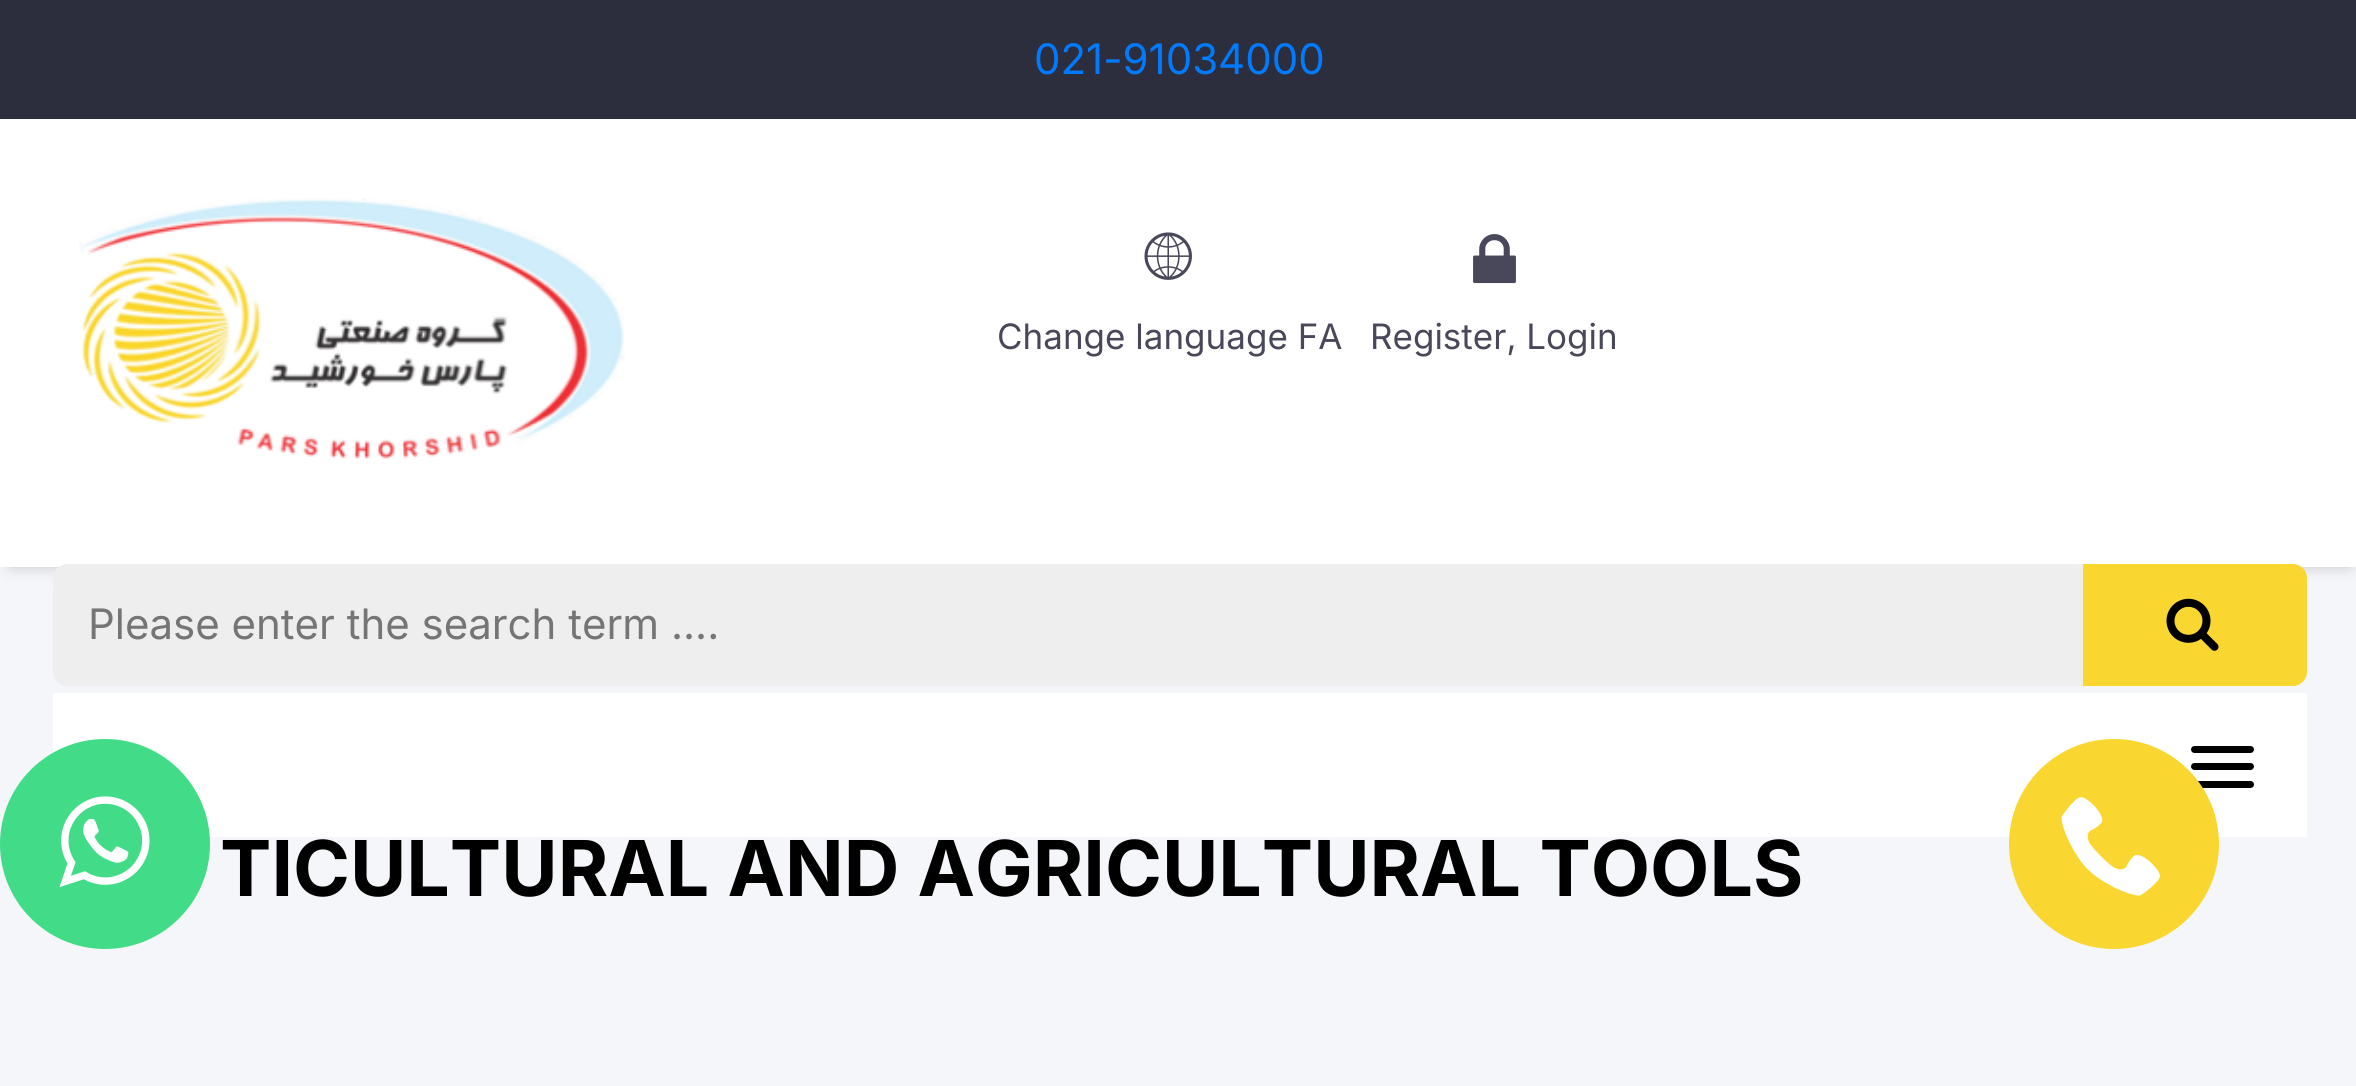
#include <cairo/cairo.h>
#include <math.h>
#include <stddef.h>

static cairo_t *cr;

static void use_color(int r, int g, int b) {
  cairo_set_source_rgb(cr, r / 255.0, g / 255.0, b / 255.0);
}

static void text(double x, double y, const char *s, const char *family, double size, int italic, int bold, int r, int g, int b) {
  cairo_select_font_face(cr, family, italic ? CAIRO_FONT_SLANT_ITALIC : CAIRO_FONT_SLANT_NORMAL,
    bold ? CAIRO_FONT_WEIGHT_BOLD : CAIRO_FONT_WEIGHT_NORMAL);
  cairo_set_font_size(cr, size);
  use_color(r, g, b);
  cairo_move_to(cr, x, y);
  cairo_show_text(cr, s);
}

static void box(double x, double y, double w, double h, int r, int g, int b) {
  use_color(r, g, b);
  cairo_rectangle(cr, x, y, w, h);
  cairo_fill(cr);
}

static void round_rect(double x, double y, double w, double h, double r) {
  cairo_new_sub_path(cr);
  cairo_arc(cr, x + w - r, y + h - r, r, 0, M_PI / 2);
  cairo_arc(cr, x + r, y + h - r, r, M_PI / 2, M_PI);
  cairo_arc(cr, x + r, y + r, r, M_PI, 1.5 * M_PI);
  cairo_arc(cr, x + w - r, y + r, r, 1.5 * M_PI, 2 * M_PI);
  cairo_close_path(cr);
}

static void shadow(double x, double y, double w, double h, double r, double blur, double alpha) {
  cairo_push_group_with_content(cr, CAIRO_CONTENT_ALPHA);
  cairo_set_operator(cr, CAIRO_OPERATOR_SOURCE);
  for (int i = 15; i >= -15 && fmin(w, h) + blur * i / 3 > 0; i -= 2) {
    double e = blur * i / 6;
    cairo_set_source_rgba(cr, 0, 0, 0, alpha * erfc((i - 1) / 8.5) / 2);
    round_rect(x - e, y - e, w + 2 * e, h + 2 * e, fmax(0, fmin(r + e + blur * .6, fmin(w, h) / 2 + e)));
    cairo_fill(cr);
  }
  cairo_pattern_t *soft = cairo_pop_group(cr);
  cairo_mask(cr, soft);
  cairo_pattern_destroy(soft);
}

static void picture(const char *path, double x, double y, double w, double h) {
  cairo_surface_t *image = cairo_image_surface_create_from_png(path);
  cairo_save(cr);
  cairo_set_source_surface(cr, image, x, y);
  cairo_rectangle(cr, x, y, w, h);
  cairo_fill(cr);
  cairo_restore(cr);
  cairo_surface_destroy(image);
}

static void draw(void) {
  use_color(244, 246, 249);
  cairo_paint(cr);
  use_color(184, 184, 184);
  shadow(11, 18, 2338, 546, 0, 9, 1);
  box(0, 119, 2356, 448, 255, 255, 255);
  box(0, 0, 2356, 119, 44, 46, 62);
  picture("img_01.png", 79, 198, 546, 261);
  picture("img_02.png", 1144, 232, 48, 48);
  picture("img_03.png", 1473, 234, 43, 50);
  use_color(238, 238, 238);
  cairo_new_path(cr);
  cairo_move_to(cr, 67, 564);
  cairo_line_to(cr, 2083, 564);
  cairo_line_to(cr, 2083, 686);
  cairo_line_to(cr, 67, 686);
  cairo_curve_to(cr, 59.5, 686, 53, 679.5, 53, 672);
  cairo_line_to(cr, 53, 578);
  cairo_curve_to(cr, 53, 570.5, 59.5, 564, 67, 564);
  cairo_close_path(cr);
  cairo_fill(cr);
  use_color(249, 214, 48);
  cairo_new_path(cr);
  cairo_move_to(cr, 2083, 564);
  cairo_line_to(cr, 2293, 564);
  cairo_curve_to(cr, 2300.5, 564, 2307, 570.5, 2307, 578);
  cairo_line_to(cr, 2307, 672);
  cairo_curve_to(cr, 2307, 679.5, 2300.5, 686, 2293, 686);
  cairo_line_to(cr, 2083, 686);
  cairo_close_path(cr);
  cairo_fill(cr);
  picture("img_04.png", 2166, 598, 53, 53);
  box(53, 693, 2254, 144, 255, 255, 255);
  use_color(0, 0, 0);
  round_rect(2191, 746, 63, 7, 3.5);
  cairo_fill(cr);
  round_rect(2191, 763, 63, 7, 3.5);
  cairo_fill(cr);
  round_rect(2191, 781, 63, 7, 3.5);
  cairo_fill(cr);
  use_color(66, 219, 135);
  cairo_arc(cr, 105, 844, 105, 0, 2 * M_PI);
  cairo_fill(cr);
  picture("img_05.png", 59, 796, 91, 91);
  use_color(249, 214, 48);
  cairo_arc(cr, 2114, 844, 105, 0, 2 * M_PI);
  cairo_fill(cr);
  picture("img_06.png", 2061, 797, 99, 99);
  text(1034, 74, "021-91034000", "Inter", 42, 0, 0, 0, 123, 255);
  text(997, 349, "Change language FA", "Inter", 35, 0, 0, 73, 72, 90);
  text(1370, 349, "Register, Login", "Inter", 35, 0, 0, 73, 72, 90);
  text(88, 639, "Please enter the search term ....", "Inter", 42, 0, 0, 117, 117, 117);
  text(220, 896, "TICULTURAL AND AGRICULTURAL TOOLS", "Inter", 77, 0, 1, 0, 0, 0);
}

int main(void) {
  cairo_surface_t *surface = cairo_image_surface_create(CAIRO_FORMAT_RGB24, 2356, 1086);
  cr = cairo_create(surface);
  cairo_font_options_t *options = cairo_font_options_create();
  cairo_font_options_set_hint_metrics(options, CAIRO_HINT_METRICS_OFF);
  cairo_font_options_set_hint_style(options, CAIRO_HINT_STYLE_NONE);
  cairo_set_font_options(cr, options);
  cairo_set_miter_limit(cr, 4);
  draw();
  cairo_surface_write_to_png(surface, "out.png");
  cairo_font_options_destroy(options);
  cairo_destroy(cr);
  cairo_surface_destroy(surface);
  return 0;
}
